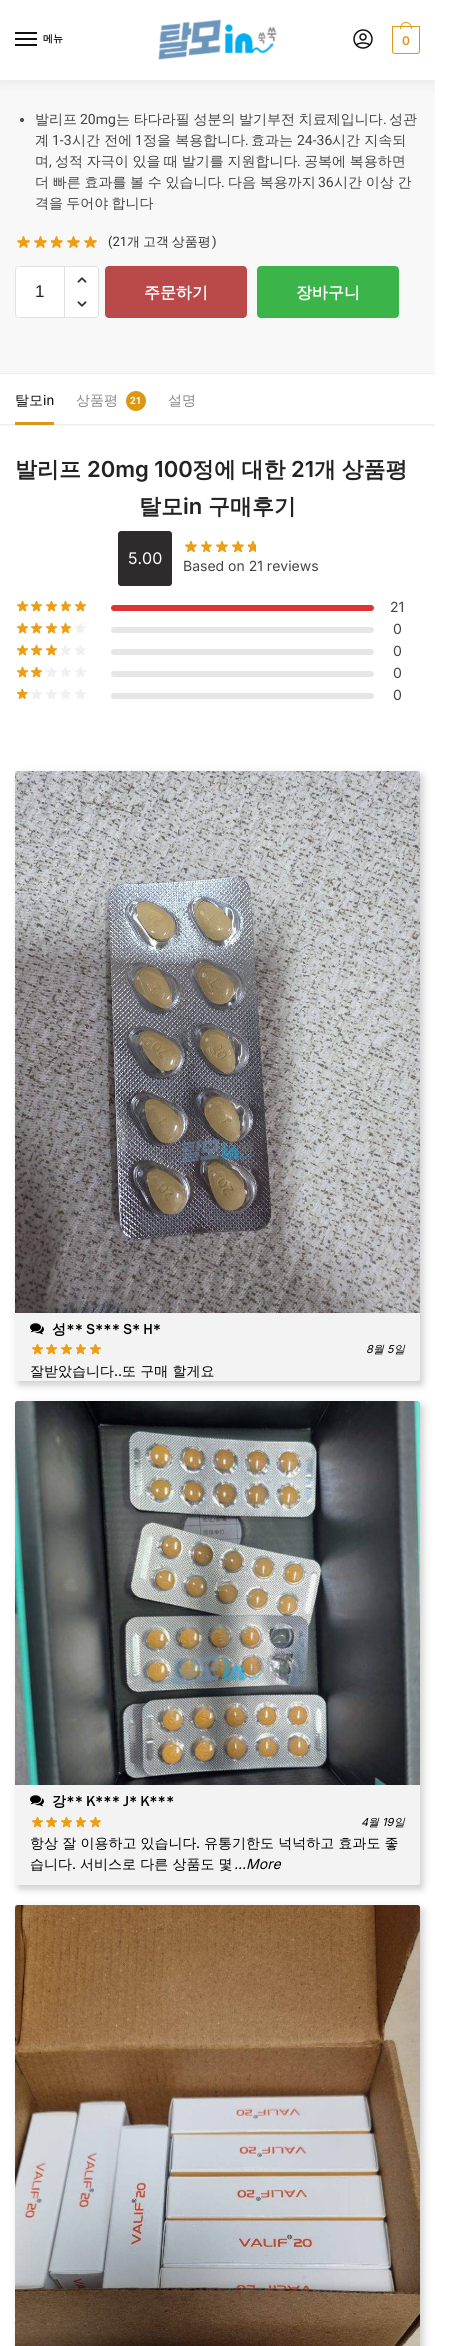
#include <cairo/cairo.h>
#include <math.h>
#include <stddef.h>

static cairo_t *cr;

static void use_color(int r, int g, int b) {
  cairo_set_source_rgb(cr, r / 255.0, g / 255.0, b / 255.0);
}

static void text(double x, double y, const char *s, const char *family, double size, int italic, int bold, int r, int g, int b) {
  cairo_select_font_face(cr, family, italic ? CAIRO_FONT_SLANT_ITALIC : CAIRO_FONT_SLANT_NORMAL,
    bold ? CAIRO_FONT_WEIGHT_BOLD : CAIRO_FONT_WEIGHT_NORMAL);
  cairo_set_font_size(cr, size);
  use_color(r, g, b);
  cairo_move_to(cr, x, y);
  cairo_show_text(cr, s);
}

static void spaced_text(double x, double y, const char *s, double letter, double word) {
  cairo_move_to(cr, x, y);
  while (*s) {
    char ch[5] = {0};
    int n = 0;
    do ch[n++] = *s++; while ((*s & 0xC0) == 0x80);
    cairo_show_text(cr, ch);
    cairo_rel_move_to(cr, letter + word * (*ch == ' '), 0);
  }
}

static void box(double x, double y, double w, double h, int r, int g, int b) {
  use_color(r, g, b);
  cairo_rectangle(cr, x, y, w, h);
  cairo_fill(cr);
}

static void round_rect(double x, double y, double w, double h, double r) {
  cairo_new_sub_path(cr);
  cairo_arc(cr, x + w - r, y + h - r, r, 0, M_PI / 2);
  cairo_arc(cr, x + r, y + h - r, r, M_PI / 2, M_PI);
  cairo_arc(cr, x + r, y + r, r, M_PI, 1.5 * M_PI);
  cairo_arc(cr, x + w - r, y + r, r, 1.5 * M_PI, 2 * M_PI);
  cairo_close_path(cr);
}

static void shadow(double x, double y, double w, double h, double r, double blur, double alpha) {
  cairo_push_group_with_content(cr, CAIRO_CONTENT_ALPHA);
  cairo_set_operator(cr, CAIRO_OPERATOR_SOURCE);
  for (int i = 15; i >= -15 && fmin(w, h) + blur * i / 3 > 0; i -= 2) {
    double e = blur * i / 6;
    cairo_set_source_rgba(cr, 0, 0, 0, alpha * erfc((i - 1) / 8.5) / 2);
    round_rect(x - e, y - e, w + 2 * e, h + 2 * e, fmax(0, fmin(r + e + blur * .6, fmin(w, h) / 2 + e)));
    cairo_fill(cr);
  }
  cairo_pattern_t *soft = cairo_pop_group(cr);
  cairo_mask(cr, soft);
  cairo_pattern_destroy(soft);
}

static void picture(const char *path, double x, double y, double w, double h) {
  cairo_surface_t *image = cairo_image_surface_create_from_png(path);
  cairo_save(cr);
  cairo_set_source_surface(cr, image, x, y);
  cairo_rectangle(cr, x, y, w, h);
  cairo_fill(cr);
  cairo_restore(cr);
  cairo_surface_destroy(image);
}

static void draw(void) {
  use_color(248, 248, 248);
  cairo_paint(cr);
  use_color(0, 0, 0);
  shadow(0, 1, 435, 80, 0, 7.5, 0.08);
  box(0, 0, 435, 80, 255, 255, 255);
  box(15, 32, 22, 2, 17, 17, 17);
  box(15, 38, 22, 2, 17, 17, 17);
  box(15, 44, 22, 2, 17, 17, 17);
  picture("img_01.png", 158, 19, 119, 41);
  picture("img_02.png", 353, 29, 20, 20);
  cairo_new_path(cr);
  cairo_move_to(cr, 392.5, 26.5);
  cairo_line_to(cr, 419.5, 26.5);
  cairo_line_to(cr, 419.5, 51);
  cairo_curve_to(cr, 419.5, 52.5, 418.5, 53.5, 417, 53.5);
  cairo_line_to(cr, 395, 53.5);
  cairo_curve_to(cr, 393.5, 53.5, 392.5, 52.5, 392.5, 51);
  cairo_close_path(cr);
  use_color(220, 152, 20);
  cairo_set_line_width(cr, 1);
  cairo_stroke(cr);
  cairo_set_fill_rule(cr, CAIRO_FILL_RULE_EVEN_ODD);
  cairo_new_path(cr);
  cairo_move_to(cr, 406, 22);
  cairo_curve_to(cr, 410, 22, 412, 25.5, 412, 29);
  cairo_line_to(cr, 400, 29);
  cairo_curve_to(cr, 400, 25.5, 402, 22, 406, 22);
  cairo_close_path(cr);
  cairo_move_to(cr, 406, 23);
  cairo_curve_to(cr, 409.5, 23, 411, 26, 411, 29);
  cairo_line_to(cr, 401, 29);
  cairo_curve_to(cr, 401, 26, 402.5, 23, 406, 23);
  cairo_close_path(cr);
  cairo_fill(cr);
  box(0, 426, 435, 1920, 255, 255, 255);
  use_color(0, 0, 0);
  shadow(18, 775, 405, 610, 2, 4, 0.2);
  shadow(18, 1405, 405, 484, 2, 4, 0.2);
  shadow(18, 1909, 405, 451, 2, 4, 0.2);
  box(435, 0, 15, 2346, 255, 255, 255);
  use_color(68, 68, 68);
  cairo_arc(cr, 22, 120, 2, 0, 2 * M_PI);
  cairo_fill(cr);
  picture("img_03.png", 17, 236, 80, 12);
  picture("img_04.png", 17, 236, 80, 12);
  use_color(255, 255, 255);
  cairo_new_path(cr);
  cairo_move_to(cr, 19, 266.5);
  cairo_line_to(cr, 64.5, 266.5);
  cairo_line_to(cr, 64.5, 317.5);
  cairo_line_to(cr, 19, 317.5);
  cairo_curve_to(cr, 17, 317.5, 15.5, 316, 15.5, 314);
  cairo_line_to(cr, 15.5, 270);
  cairo_curve_to(cr, 15.5, 268, 17, 266.5, 19, 266.5);
  cairo_close_path(cr);
  cairo_fill_preserve(cr);
  use_color(226, 226, 226);
  cairo_stroke(cr);
  use_color(255, 255, 255);
  cairo_new_path(cr);
  cairo_move_to(cr, 64.5, 266.5);
  cairo_line_to(cr, 95, 266.5);
  cairo_curve_to(cr, 97, 266.5, 98.5, 268, 98.5, 270);
  cairo_line_to(cr, 98.5, 314);
  cairo_curve_to(cr, 98.5, 316, 97, 317.5, 95, 317.5);
  cairo_line_to(cr, 64.5, 317.5);
  cairo_close_path(cr);
  cairo_fill_preserve(cr);
  use_color(226, 226, 226);
  cairo_stroke(cr);
  picture("img_05.png", 77, 277, 10, 6);
  picture("img_06.png", 77, 301, 10, 6);
  use_color(186, 73, 73);
  round_rect(105, 266, 142, 52, 4);
  cairo_fill(cr);
  use_color(59, 181, 74);
  round_rect(257, 266, 142, 52, 4);
  cairo_fill(cr);
  box(0, 374, 435, 50, 255, 255, 255);
  box(0, 424, 435, 1, 238, 238, 238);
  box(0, 373, 435, 1, 238, 238, 238);
  box(15, 422, 39, 3, 220, 152, 20);
  cairo_arc(cr, 136, 401, 10, 0, 2 * M_PI);
  cairo_fill(cr);
  box(0, 425, 435, 1, 245, 245, 245);
  use_color(45, 43, 43);
  round_rect(118, 531, 54, 55, 3);
  cairo_fill(cr);
  picture("img_08.png", 185, 541, 71, 11);
  picture("img_07.png", 185, 540, 71, 13);
  picture("img_10.png", 17, 601, 69, 11);
  picture("img_09.png", 17, 600, 69, 12);
  use_color(221, 51, 51);
  round_rect(111, 605, 263, 6, 3);
  cairo_fill(cr);
  picture("img_10.png", 17, 623, 69, 11);
  picture("img_11.png", 17, 622, 54, 12);
  use_color(230, 230, 230);
  round_rect(111, 627, 263, 6, 3);
  cairo_fill(cr);
  picture("img_10.png", 17, 645, 69, 11);
  picture("img_12.png", 17, 644, 40, 12);
  round_rect(111, 649, 263, 6, 3);
  cairo_fill(cr);
  picture("img_10.png", 17, 667, 69, 11);
  picture("img_13.png", 17, 666, 25, 12);
  round_rect(111, 671, 263, 6, 3);
  cairo_fill(cr);
  picture("img_10.png", 17, 689, 69, 11);
  picture("img_14.png", 16, 688, 12, 11);
  round_rect(111, 693, 263, 6, 3);
  cairo_fill(cr);
  use_color(243, 243, 243);
  round_rect(15, 771, 405, 610, 2);
  cairo_fill(cr);
  picture("img_15.png", 15, 771, 405, 542);
  picture("img_16.png", 30, 1323, 14, 12);
  picture("img_18.png", 32, 1344, 69, 10);
  picture("img_17.png", 32, 1343, 69, 12);
  round_rect(15, 1401, 405, 484, 2);
  cairo_fill(cr);
  picture("img_19.png", 15, 1401, 405, 384);
  picture("img_16.png", 30, 1795, 14, 12);
  picture("img_18.png", 32, 1817, 69, 10);
  picture("img_17.png", 32, 1816, 69, 12);
  picture("img_20.png", 15, 1905, 405, 441);
  text(43, 42, "메뉴", "WenQuanYi Zen Hei", 10, 0, 1, 17, 17, 17);
  cairo_select_font_face(cr, "Inter SemiBold", CAIRO_FONT_SLANT_NORMAL, CAIRO_FONT_WEIGHT_NORMAL);
  cairo_set_font_size(cr, 12);
  use_color(220, 152, 20);
  spaced_text(402, 45, "0", -1, 0);
  text(35, 124, "발리프", "WenQuanYi Zen Hei Medium", 14, 0, 0, 68, 68, 68);
  text(80, 124, "20mg", "Roboto", 14, 0, 0, 68, 68, 68);
  cairo_select_font_face(cr, "WenQuanYi Zen Hei Medium", CAIRO_FONT_SLANT_NORMAL, CAIRO_FONT_WEIGHT_NORMAL);
  spaced_text(116, 124, "는 타다라필 성분의 발기부전 치료제입니다", 0, -0.5);
  text(389, 124, "성관", "WenQuanYi Zen Hei Medium", 14, 0, 0, 68, 68, 68);
  text(383, 124, ".", "Roboto", 14, 0, 0, 68, 68, 68);
  text(35, 145, "계", "WenQuanYi Zen Hei Medium", 14, 0, 0, 68, 68, 68);
  text(52, 145, "1-3", "Roboto", 14, 0, 0, 68, 68, 68);
  text(72, 145, "시간 전에", "WenQuanYi Zen Hei Medium", 14, 0, 0, 68, 68, 68);
  text(135, 145, "1", "Roboto", 14, 0, 0, 68, 68, 68);
  text(143, 145, "정을 복용합니다", "WenQuanYi Zen Hei Medium", 14, 0, 0, 68, 68, 68);
  text(245, 145, ".", "Roboto", 14, 0, 0, 68, 68, 68);
  text(251, 145, "효과는", "WenQuanYi Zen Hei Medium", 14, 0, 0, 68, 68, 68);
  text(297, 145, "24-36", "Roboto", 14, 0, 0, 68, 68, 68);
  text(332, 145, "시간 지속되", "WenQuanYi Zen Hei Medium", 14, 0, 0, 68, 68, 68);
  text(35, 166, "며", "WenQuanYi Zen Hei Medium", 14, 0, 0, 68, 68, 68);
  text(49, 166, ",", "Roboto", 14, 0, 0, 68, 68, 68);
  cairo_select_font_face(cr, "WenQuanYi Zen Hei Medium", CAIRO_FONT_SLANT_NORMAL, CAIRO_FONT_WEIGHT_NORMAL);
  spaced_text(55, 166, "성적 자극이 있을 때 발기를 지원합니다", 0, -0.5);
  text(297, 166, ".", "Roboto", 14, 0, 0, 68, 68, 68);
  cairo_select_font_face(cr, "WenQuanYi Zen Hei Medium", CAIRO_FONT_SLANT_NORMAL, CAIRO_FONT_WEIGHT_NORMAL);
  spaced_text(304, 166, "공복에 복용하면", 0, -0.5);
  spaced_text(35, 187, "더 빠른 효과를 볼 수 있습니다", 0, -0.5);
  text(221, 187, ".", "Roboto", 14, 0, 0, 68, 68, 68);
  cairo_select_font_face(cr, "WenQuanYi Zen Hei Medium", CAIRO_FONT_SLANT_NORMAL, CAIRO_FONT_WEIGHT_NORMAL);
  spaced_text(228, 187, "다음 복용까지", 0, -0.5);
  text(318, 187, "36", "Roboto", 14, 0, 0, 68, 68, 68);
  cairo_select_font_face(cr, "WenQuanYi Zen Hei Medium", CAIRO_FONT_SLANT_NORMAL, CAIRO_FONT_WEIGHT_NORMAL);
  spaced_text(334, 187, "시간 이상 간", 0, -0.5);
  spaced_text(35, 208, "격을 두어야 합니다", 0, -1);
  text(108, 246, "(21", "Roboto", 13, 0, 0, 51, 51, 51);
  cairo_select_font_face(cr, "WenQuanYi Zen Hei Medium", CAIRO_FONT_SLANT_NORMAL, CAIRO_FONT_WEIGHT_NORMAL);
  spaced_text(127, 246, "개 고객 상품평", 0, -1);
  text(212, 246, ")", "Roboto", 13, 0, 0, 51, 51, 51);
  text(35, 297, "1", "Liberation Sans", 17, 0, 0, 34, 34, 34);
  text(144, 298, "주문하기", "WenQuanYi Zen Hei", 16, 0, 1, 255, 255, 255);
  text(296, 298, "장바구니", "WenQuanYi Zen Hei", 16, 0, 1, 255, 255, 255);
  text(15, 405, "탈모", "WenQuanYi Zen Hei Medium", 14, 0, 0, 17, 17, 17);
  text(43, 405, "in", "Roboto", 14, 0, 0, 17, 17, 17);
  text(76, 405, "상품평", "WenQuanYi Zen Hei Medium", 14, 0, 0, 136, 136, 136);
  text(130, 404, "21", "Roboto", 10, 0, 1, 255, 255, 255);
  text(168, 405, "설명", "WenQuanYi Zen Hei Medium", 14, 0, 0, 136, 136, 136);
  text(15, 477, "발리프", "WenQuanYi Zen Hei", 22, 0, 1, 34, 34, 34);
  text(87, 477, "20mg 100", "Inter SemiBold", 22, 0, 0, 34, 34, 34);
  text(192, 477, "정", "WenQuanYi Zen Hei", 22, 0, 1, 34, 34, 34);
  spaced_text(214, 477, "에 대한", 0, -1);
  text(291, 477, "21", "Inter SemiBold", 22, 0, 0, 34, 34, 34);
  cairo_select_font_face(cr, "WenQuanYi Zen Hei", CAIRO_FONT_SLANT_NORMAL, CAIRO_FONT_WEIGHT_BOLD);
  spaced_text(314, 477, "개 상품평", 0, -1);
  text(139, 514, "탈모", "WenQuanYi Zen Hei", 22, 0, 1, 34, 34, 34);
  text(183, 514, "in", "Inter SemiBold", 22, 0, 0, 34, 34, 34);
  text(208, 514, "구매후기", "WenQuanYi Zen Hei", 22, 0, 1, 34, 34, 34);
  text(128, 564, "5.00", "Inter", 16, 0, 0, 255, 255, 255);
  text(183, 571, "Based on 21 reviews", "Inter", 14, 0, 0, 68, 68, 68);
  text(390, 612, "21", "Inter", 14, 0, 0, 68, 68, 68);
  text(393, 634, "0", "Inter", 14, 0, 0, 68, 68, 68);
  text(393, 656, "0", "Inter", 14, 0, 0, 68, 68, 68);
  text(393, 678, "0", "Inter", 14, 0, 0, 68, 68, 68);
  text(393, 700, "0", "Inter", 14, 0, 0, 68, 68, 68);
  cairo_select_font_face(cr, "WenQuanYi Zen Hei", CAIRO_FONT_SLANT_NORMAL, CAIRO_FONT_WEIGHT_BOLD);
  use_color(0, 0, 0);
  spaced_text(52, 1334, "성** S*** S* H*", 0, -1);
  text(366, 1353, "8", "Inter", 11, 1, 0, 0, 0, 0);
  text(373, 1353, "월", "WenQuanYi Zen Hei Medium", 11, 1, 0, 0, 0, 0);
  text(387, 1353, "5", "Inter", 11, 1, 0, 0, 0, 0);
  text(394, 1353, "일", "WenQuanYi Zen Hei Medium", 11, 1, 0, 0, 0, 0);
  text(30, 1376, "잘받았습니다", "WenQuanYi Zen Hei Medium", 14, 0, 0, 0, 0, 0);
  text(114, 1376, "..", "Inter", 14, 0, 0, 0, 0, 0);
  text(122, 1376, "또 구매 할게요", "WenQuanYi Zen Hei Medium", 14, 0, 0, 0, 0, 0);
  cairo_select_font_face(cr, "WenQuanYi Zen Hei", CAIRO_FONT_SLANT_NORMAL, CAIRO_FONT_WEIGHT_BOLD);
  spaced_text(52, 1806, "강** K*** J* K***", 0, -1);
  text(361, 1826, "4", "Inter", 11, 1, 0, 0, 0, 0);
  text(368, 1826, "월", "WenQuanYi Zen Hei Medium", 11, 1, 0, 0, 0, 0);
  text(382, 1826, "19", "Inter", 11, 1, 0, 0, 0, 0);
  text(394, 1826, "일", "WenQuanYi Zen Hei Medium", 11, 1, 0, 0, 0, 0);
  text(30, 1848, "항상 잘 이용하고 있습니다", "WenQuanYi Zen Hei Medium", 14, 0, 0, 0, 0, 0);
  text(196, 1848, ".", "Inter", 14, 0, 0, 0, 0, 0);
  text(204, 1848, "유통기한도 넉넉하고 효과도 좋", "WenQuanYi Zen Hei Medium", 14, 0, 0, 0, 0, 0);
  text(30, 1869, "습니다", "WenQuanYi Zen Hei Medium", 14, 0, 0, 0, 0, 0);
  text(72, 1869, ".", "Inter", 14, 0, 0, 0, 0, 0);
  text(80, 1869, "서비스로 다른 상품도 몇", "WenQuanYi Zen Hei Medium", 14, 0, 0, 0, 0, 0);
  text(234, 1869, "...More", "Inter", 14, 1, 0, 0, 0, 0);
}

int main(void) {
  cairo_surface_t *surface = cairo_image_surface_create(CAIRO_FORMAT_RGB24, 450, 2346);
  cr = cairo_create(surface);
  cairo_font_options_t *options = cairo_font_options_create();
  cairo_font_options_set_hint_metrics(options, CAIRO_HINT_METRICS_OFF);
  cairo_font_options_set_hint_style(options, CAIRO_HINT_STYLE_NONE);
  cairo_set_font_options(cr, options);
  cairo_set_miter_limit(cr, 4);
  draw();
  cairo_surface_write_to_png(surface, "out.png");
  cairo_font_options_destroy(options);
  cairo_destroy(cr);
  cairo_surface_destroy(surface);
  return 0;
}
